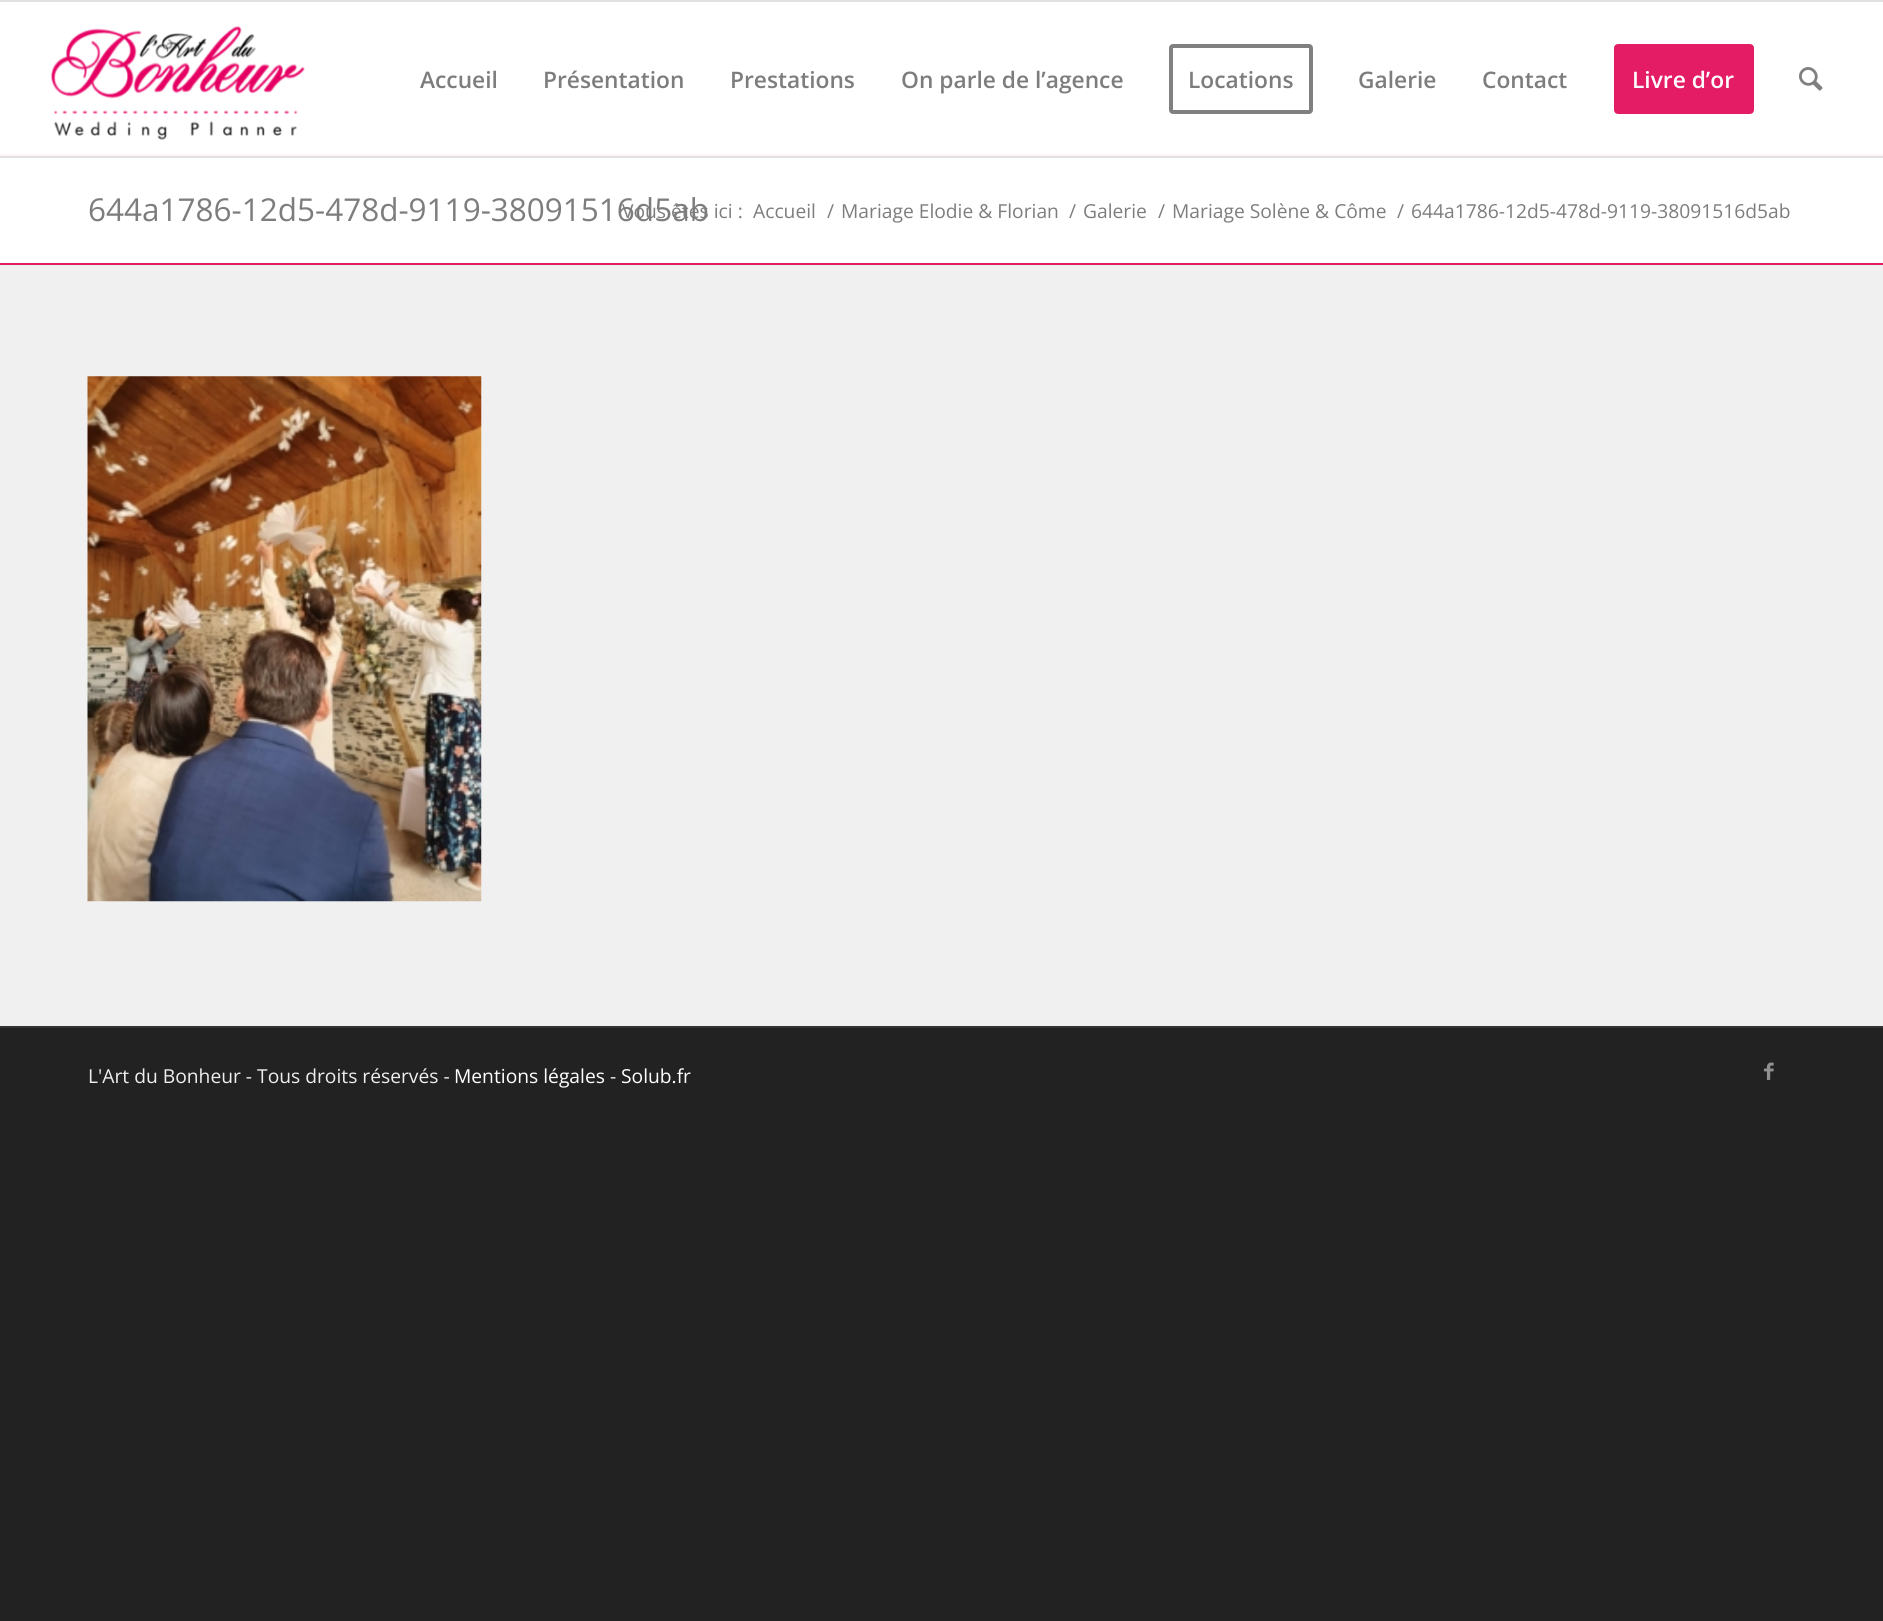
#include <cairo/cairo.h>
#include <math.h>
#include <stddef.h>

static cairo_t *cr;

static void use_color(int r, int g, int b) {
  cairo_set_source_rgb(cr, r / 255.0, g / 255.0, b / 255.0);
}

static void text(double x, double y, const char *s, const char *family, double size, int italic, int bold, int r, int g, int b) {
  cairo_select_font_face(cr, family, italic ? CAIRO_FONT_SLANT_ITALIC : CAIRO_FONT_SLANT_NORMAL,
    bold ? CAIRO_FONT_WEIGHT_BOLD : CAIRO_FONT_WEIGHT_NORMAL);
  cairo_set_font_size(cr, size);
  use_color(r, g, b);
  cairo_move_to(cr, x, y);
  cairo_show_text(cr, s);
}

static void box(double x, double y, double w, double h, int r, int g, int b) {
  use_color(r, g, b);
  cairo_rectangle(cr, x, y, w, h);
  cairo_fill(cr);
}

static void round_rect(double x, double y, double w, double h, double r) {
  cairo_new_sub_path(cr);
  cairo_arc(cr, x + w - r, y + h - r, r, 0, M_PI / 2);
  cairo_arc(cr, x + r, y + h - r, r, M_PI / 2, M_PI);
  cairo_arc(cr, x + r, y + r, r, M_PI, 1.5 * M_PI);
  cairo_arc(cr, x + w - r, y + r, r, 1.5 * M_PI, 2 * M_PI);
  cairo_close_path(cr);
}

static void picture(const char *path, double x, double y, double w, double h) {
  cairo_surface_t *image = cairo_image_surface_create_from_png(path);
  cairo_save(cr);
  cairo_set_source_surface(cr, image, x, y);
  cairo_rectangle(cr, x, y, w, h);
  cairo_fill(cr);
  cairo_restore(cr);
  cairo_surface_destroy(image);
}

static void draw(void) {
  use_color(34, 34, 34);
  cairo_paint(cr);
  box(0, 0, 1883, 2, 225, 225, 225);
  box(0, 156, 1883, 2, 225, 225, 225);
  box(0, 2, 1883, 152, 255, 255, 255);
  picture("img_01.png", 51, 26, 254, 114);
  round_rect(1171, 46, 140, 66, 2);
  use_color(128, 128, 128);
  cairo_set_line_width(cr, 4);
  cairo_stroke(cr);
  use_color(228, 27, 101);
  round_rect(1616, 46, 136, 66, 2);
  cairo_fill_preserve(cr);
  cairo_stroke(cr);
  picture("img_02.png", 1799, 67, 24, 24);
  box(0, 158, 1883, 105, 255, 255, 255);
  box(0, 154, 1883, 2, 254, 244, 247);
  box(0, 265, 1883, 761, 240, 240, 240);
  box(0, 263, 1883, 2, 227, 27, 100);
  picture("img_03.png", 87, 376, 395, 526);
  box(0, 1026, 1883, 2, 51, 51, 51);
  picture("img_04.png", 1764, 1062, 10, 18);
  text(420, 88, "Accueil", "Open Sans SemiBold", 22.75, 0, 0, 125, 125, 125);
  text(543, 88, "Présentation", "Open Sans SemiBold", 22.75, 0, 0, 125, 125, 125);
  text(730, 88, "Prestations", "Open Sans SemiBold", 22.75, 0, 0, 125, 125, 125);
  text(901, 88, "On parle de l’agence", "Open Sans SemiBold", 22.75, 0, 0, 125, 125, 125);
  text(1188, 88, "Locations", "Open Sans SemiBold", 22.75, 0, 0, 125, 125, 125);
  text(1358, 88, "Galerie", "Open Sans SemiBold", 22.75, 0, 0, 125, 125, 125);
  text(1482, 88, "Contact", "Open Sans SemiBold", 22.75, 0, 0, 125, 125, 125);
  text(1632, 88, "Livre d’or", "Open Sans SemiBold", 22.75, 0, 0, 255, 255, 255);
  text(88, 221, "644a1786-12d5-478d-9119-38091516d5ab", "Open Sans", 31.5, 0, 0, 125, 125, 125);
  text(622, 218, "Vous êtes ici :", "Open Sans", 19.25, 0, 0, 125, 125, 125);
  text(753, 218, "Accueil", "Open Sans", 19.25, 0, 0, 125, 125, 125);
  text(827, 218, "/", "Open Sans", 19.25, 0, 0, 125, 125, 125);
  text(841, 218, "Mariage Elodie & Florian", "Open Sans", 19.25, 0, 0, 125, 125, 125);
  text(1069, 218, "/", "Open Sans", 19.25, 0, 0, 125, 125, 125);
  text(1083, 218, "Galerie", "Open Sans", 19.25, 0, 0, 125, 125, 125);
  text(1158, 218, "/", "Open Sans", 19.25, 0, 0, 125, 125, 125);
  text(1172, 218, "Mariage Solène & Côme", "Open Sans", 19.25, 0, 0, 125, 125, 125);
  text(1397, 218, "/", "Open Sans", 19.25, 0, 0, 125, 125, 125);
  text(1411, 218, "644a1786-12d5-478d-9119-38091516d5ab", "Open Sans", 19.25, 0, 0, 125, 125, 125);
  text(88, 1083, "L'Art du Bonheur - Tous droits réservés -", "Open Sans", 19.25, 0, 0, 238, 238, 238);
  text(454, 1083, "Mentions légales", "Open Sans", 19.25, 0, 0, 255, 255, 255);
  text(610, 1083, "-", "Open Sans", 19.25, 0, 0, 238, 238, 238);
  text(621, 1083, "Solub.fr", "Open Sans", 19.25, 0, 0, 255, 255, 255);
}

int main(void) {
  cairo_surface_t *surface = cairo_image_surface_create(CAIRO_FORMAT_RGB24, 1883, 1621);
  cr = cairo_create(surface);
  cairo_font_options_t *options = cairo_font_options_create();
  cairo_font_options_set_hint_metrics(options, CAIRO_HINT_METRICS_OFF);
  cairo_font_options_set_hint_style(options, CAIRO_HINT_STYLE_NONE);
  cairo_set_font_options(cr, options);
  cairo_set_miter_limit(cr, 4);
  draw();
  cairo_surface_write_to_png(surface, "out.png");
  cairo_font_options_destroy(options);
  cairo_destroy(cr);
  cairo_surface_destroy(surface);
  return 0;
}
